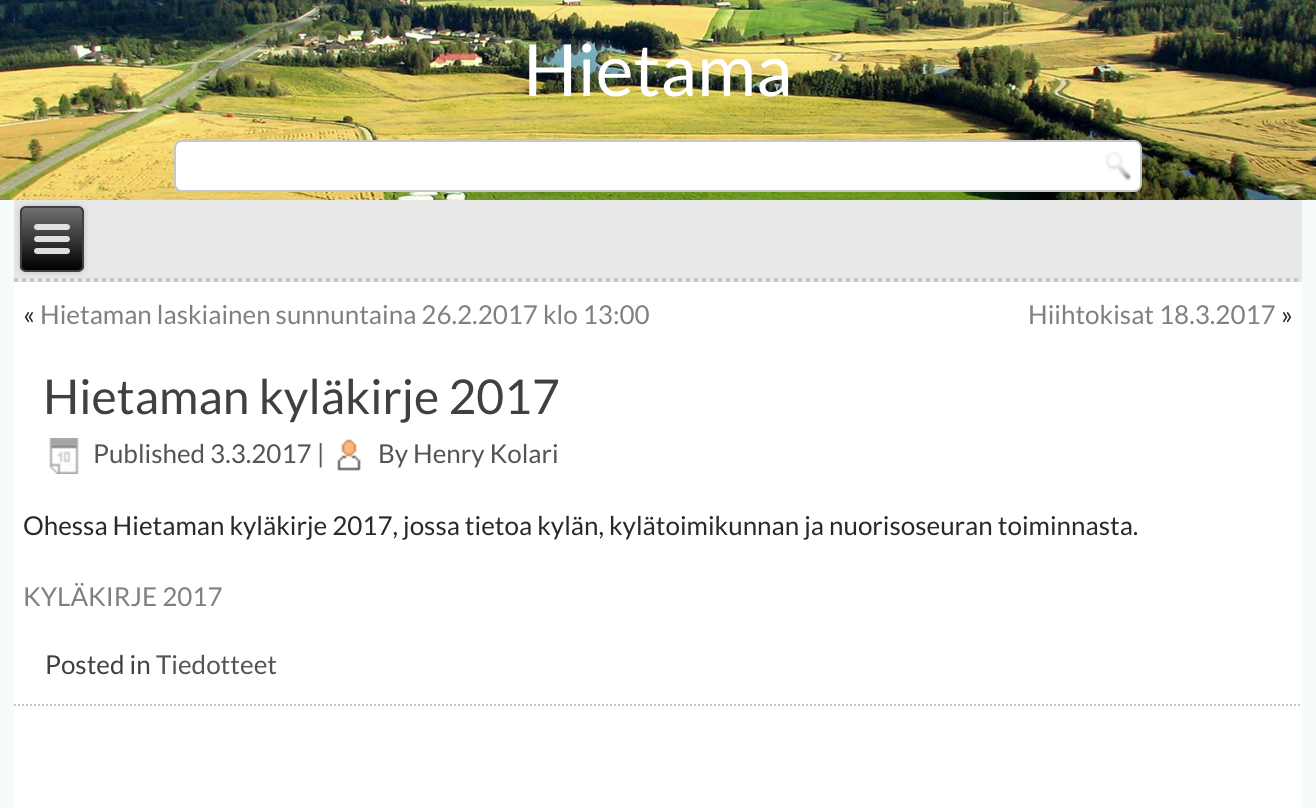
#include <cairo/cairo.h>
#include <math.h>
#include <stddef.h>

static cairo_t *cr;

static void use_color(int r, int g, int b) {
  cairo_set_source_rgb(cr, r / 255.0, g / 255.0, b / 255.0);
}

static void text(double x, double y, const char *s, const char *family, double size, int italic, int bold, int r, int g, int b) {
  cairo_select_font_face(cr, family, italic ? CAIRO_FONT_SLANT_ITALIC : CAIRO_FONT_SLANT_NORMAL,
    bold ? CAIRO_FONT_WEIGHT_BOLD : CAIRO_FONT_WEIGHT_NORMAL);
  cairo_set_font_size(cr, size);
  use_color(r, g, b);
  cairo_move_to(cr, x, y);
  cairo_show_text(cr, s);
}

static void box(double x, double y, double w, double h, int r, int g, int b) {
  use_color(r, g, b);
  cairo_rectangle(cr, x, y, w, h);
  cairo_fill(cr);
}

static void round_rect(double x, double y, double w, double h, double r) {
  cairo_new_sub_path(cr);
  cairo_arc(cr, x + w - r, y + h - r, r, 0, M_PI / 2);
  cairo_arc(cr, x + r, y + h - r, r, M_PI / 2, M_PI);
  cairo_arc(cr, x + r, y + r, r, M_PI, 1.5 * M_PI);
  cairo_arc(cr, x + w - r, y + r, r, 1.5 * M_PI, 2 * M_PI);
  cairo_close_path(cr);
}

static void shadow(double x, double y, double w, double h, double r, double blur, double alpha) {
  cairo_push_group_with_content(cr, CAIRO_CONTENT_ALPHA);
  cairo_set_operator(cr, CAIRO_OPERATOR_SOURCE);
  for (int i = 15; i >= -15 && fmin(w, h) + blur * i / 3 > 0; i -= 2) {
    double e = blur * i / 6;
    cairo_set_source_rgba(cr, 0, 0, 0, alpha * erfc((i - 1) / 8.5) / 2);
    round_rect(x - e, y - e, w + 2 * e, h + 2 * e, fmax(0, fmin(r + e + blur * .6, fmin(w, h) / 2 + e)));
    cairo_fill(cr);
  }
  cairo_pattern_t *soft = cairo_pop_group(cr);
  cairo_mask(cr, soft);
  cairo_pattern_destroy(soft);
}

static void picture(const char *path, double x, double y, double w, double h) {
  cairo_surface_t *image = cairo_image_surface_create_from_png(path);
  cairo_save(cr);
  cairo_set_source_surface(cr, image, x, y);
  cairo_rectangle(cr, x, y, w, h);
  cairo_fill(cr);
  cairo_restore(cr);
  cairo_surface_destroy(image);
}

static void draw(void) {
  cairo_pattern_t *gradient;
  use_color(248, 251, 252);
  cairo_paint(cr);
  picture("img_01.png", 0, 0, 1316, 200);
  use_color(255, 255, 255);
  round_rect(175, 141, 966, 50, 7);
  cairo_fill_preserve(cr);
  use_color(199, 199, 199);
  cairo_stroke(cr);
  picture("img_02.png", 1105, 152, 27, 29);
  box(14, 282, 1288, 526, 255, 255, 255);
  box(14, 200, 1288, 82, 232, 232, 232);
  cairo_new_path(cr);
  cairo_move_to(cr, 14, 280);
  cairo_line_to(cr, 1302, 280);
  use_color(199, 199, 199);
  cairo_set_line_width(cr, 4);
  cairo_set_dash(cr, (double[]){4, 4}, 2, 0);
  cairo_stroke(cr);
  use_color(0, 0, 0);
  shadow(20, 206, 64, 66, 6, 3, 0.2);
  cairo_save(cr);
  round_rect(20, 206, 64, 66, 6);
  cairo_clip(cr);
  gradient = cairo_pattern_create_linear(52, 208, 52, 270);
  cairo_pattern_add_color_stop_rgba(gradient, 0, 0.439, 0.439, 0.439, 1);
  cairo_pattern_add_color_stop_rgba(gradient, 1, 0, 0, 0, 1);
  cairo_set_source(cr, gradient);
  cairo_pattern_destroy(gradient);
  cairo_rectangle(cr, 20, 208, 64, 62);
  cairo_fill(cr);
  cairo_restore(cr);
  round_rect(21, 207, 62, 64, 5);
  use_color(64, 64, 64);
  cairo_set_line_width(cr, 2);
  cairo_set_dash(cr, NULL, 0, 0);
  cairo_stroke(cr);
  use_color(224, 224, 224);
  round_rect(34, 224, 36, 6, 3);
  cairo_fill(cr);
  round_rect(34, 236, 36, 6, 3);
  cairo_fill(cr);
  round_rect(34, 248, 36, 6, 3);
  cairo_fill(cr);
  picture("img_03.png", 49, 438, 30, 36);
  picture("img_04.png", 337, 439, 24, 32);
  cairo_new_path(cr);
  cairo_move_to(cr, 14, 705);
  cairo_line_to(cr, 1302, 705);
  use_color(199, 199, 199);
  cairo_set_dash(cr, (double[]){2, 2}, 2, 0);
  cairo_stroke(cr);
  text(523, 96, "Hietama", "Lato", 72, 0, 0, 255, 255, 255);
  text(23, 324, "«", "Lato", 26, 0, 0, 41, 41, 41);
  text(40, 324, "Hietaman laskiainen sunnuntaina 26.2.2017 klo 13:00", "Lato", 26, 0, 0, 128, 128, 128);
  text(1028, 324, "Hiihtokisat 18.3.2017", "Lato", 26, 0, 0, 128, 128, 128);
  text(1281, 324, "»", "Lato", 26, 0, 0, 41, 41, 41);
  text(43, 414, "Hietaman kyläkirje 2017", "Lato", 48, 0, 0, 64, 64, 64);
  text(93, 463, "Published 3.3.2017 |", "Lato", 26, 0, 0, 84, 84, 84);
  text(378, 463, "By", "Lato", 26, 0, 0, 84, 84, 84);
  text(413, 463, "Henry Kolari", "Lato", 26, 0, 0, 84, 84, 84);
  text(23, 535, "Ohessa Hietaman kyläkirje 2017, jossa tietoa kylän, kylätoimikunnan ja nuorisoseuran toiminnasta.", "Lato", 26, 0, 0, 41, 41, 41);
  text(23, 606, "KYLÄKIRJE 2017", "Lato", 26, 0, 0, 128, 128, 128);
  text(45, 674, "Posted in", "Lato", 26, 0, 0, 64, 64, 64);
  text(156, 674, "Tiedotteet", "Lato", 26, 0, 0, 84, 84, 84);
}

int main(void) {
  cairo_surface_t *surface = cairo_image_surface_create(CAIRO_FORMAT_RGB24, 1316, 808);
  cr = cairo_create(surface);
  cairo_font_options_t *options = cairo_font_options_create();
  cairo_font_options_set_hint_metrics(options, CAIRO_HINT_METRICS_OFF);
  cairo_font_options_set_hint_style(options, CAIRO_HINT_STYLE_NONE);
  cairo_set_font_options(cr, options);
  cairo_set_miter_limit(cr, 4);
  draw();
  cairo_surface_write_to_png(surface, "out.png");
  cairo_font_options_destroy(options);
  cairo_destroy(cr);
  cairo_surface_destroy(surface);
  return 0;
}
